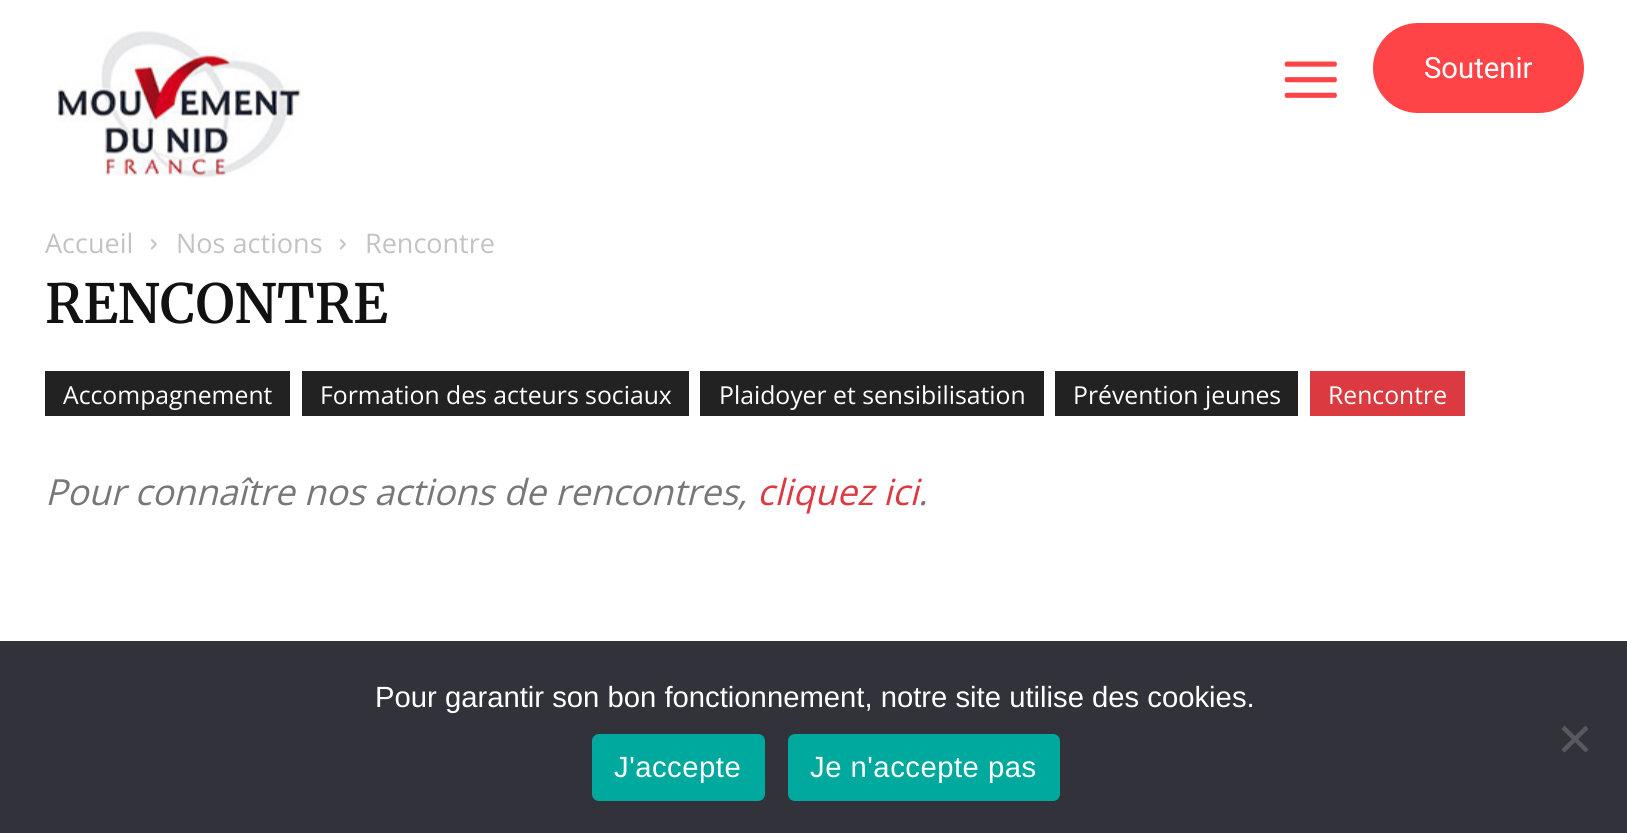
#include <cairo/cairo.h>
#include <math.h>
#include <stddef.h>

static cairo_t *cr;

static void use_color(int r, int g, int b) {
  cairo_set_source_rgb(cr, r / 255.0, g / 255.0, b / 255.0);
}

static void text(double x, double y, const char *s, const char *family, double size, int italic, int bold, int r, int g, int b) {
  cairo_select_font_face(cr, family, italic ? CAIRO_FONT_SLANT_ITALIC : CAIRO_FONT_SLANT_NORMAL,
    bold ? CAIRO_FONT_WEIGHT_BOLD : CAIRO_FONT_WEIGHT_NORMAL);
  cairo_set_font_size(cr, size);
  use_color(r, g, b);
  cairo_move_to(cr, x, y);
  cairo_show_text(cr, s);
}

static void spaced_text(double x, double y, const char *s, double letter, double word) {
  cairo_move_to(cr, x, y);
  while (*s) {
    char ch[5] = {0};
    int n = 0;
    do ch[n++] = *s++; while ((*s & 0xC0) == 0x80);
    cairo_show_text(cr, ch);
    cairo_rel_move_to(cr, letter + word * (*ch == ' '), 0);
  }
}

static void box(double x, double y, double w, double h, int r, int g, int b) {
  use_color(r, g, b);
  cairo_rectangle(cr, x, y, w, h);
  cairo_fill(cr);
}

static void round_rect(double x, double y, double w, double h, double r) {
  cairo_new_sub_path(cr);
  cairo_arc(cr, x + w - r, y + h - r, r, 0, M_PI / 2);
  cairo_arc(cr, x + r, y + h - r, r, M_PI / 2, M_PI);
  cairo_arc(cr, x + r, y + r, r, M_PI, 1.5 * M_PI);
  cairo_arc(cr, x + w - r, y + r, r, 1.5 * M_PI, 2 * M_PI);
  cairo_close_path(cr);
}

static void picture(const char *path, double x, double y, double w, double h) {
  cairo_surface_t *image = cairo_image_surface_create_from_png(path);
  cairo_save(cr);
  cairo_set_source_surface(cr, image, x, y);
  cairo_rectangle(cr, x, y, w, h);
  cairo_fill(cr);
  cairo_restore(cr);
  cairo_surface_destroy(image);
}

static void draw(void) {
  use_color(255, 255, 255);
  cairo_paint(cr);
  picture("img_01.png", 57, 31, 247, 147);
  picture("img_02.png", 1284, 61, 53, 37);
  use_color(255, 68, 71);
  round_rect(1373, 23, 211, 90, 45);
  cairo_fill(cr);
  picture("img_03.png", 150, 239, 7, 11);
  picture("img_03.png", 339, 239, 7, 11);
  box(45, 371, 245, 45, 34, 34, 34);
  box(302, 371, 387, 45, 34, 34, 34);
  box(700, 371, 344, 45, 34, 34, 34);
  box(1055, 371, 243, 45, 34, 34, 34);
  box(1310, 371, 155, 45, 219, 59, 64);
  box(0, 641, 1627, 192, 50, 50, 58);
  use_color(89, 89, 93);
  cairo_new_path(cr);
  cairo_move_to(cr, 1585.5, 725.5);
  cairo_line_to(cr, 1588.5, 729);
  cairo_line_to(cr, 1564.5, 752.5);
  cairo_line_to(cr, 1561.5, 749.5);
  cairo_close_path(cr);
  cairo_fill(cr);
  cairo_new_path(cr);
  cairo_move_to(cr, 1561.5, 729);
  cairo_line_to(cr, 1564.5, 725.5);
  cairo_line_to(cr, 1588.5, 749.5);
  cairo_line_to(cr, 1585.5, 752.5);
  cairo_close_path(cr);
  cairo_fill(cr);
  use_color(0, 169, 157);
  round_rect(592, 734, 173, 67, 7);
  cairo_fill(cr);
  round_rect(788, 734, 272, 67, 7);
  cairo_fill(cr);
  text(1424, 78, "Soutenir", "Roboto", 29.25, 0, 0, 255, 255, 255);
  text(45, 253, "Accueil", "Open Sans", 27, 0, 0, 195, 195, 195);
  text(176, 253, "Nos actions", "Open Sans", 27, 0, 0, 195, 195, 195);
  text(365, 253, "Rencontre", "Open Sans", 27, 0, 0, 195, 195, 195);
  text(45, 323, "RENCONTRE", "Merriweather SemiBold", 54, 0, 0, 17, 17, 17);
  text(63, 404, "Accompagnement", "Open Sans", 24.75, 0, 0, 255, 255, 255);
  text(320, 404, "Formation des acteurs sociaux", "Open Sans", 24.75, 0, 0, 255, 255, 255);
  text(719, 404, "Plaidoyer et sensibilisation", "Open Sans", 24.75, 0, 0, 255, 255, 255);
  text(1073, 404, "Prévention jeunes", "Open Sans", 24.75, 0, 0, 255, 255, 255);
  text(1328, 404, "Rencontre", "Open Sans", 24.75, 0, 0, 255, 255, 255);
  text(45, 505, "Pour connaître nos actions de rencontres,", "Open Sans", 36, 1, 0, 119, 119, 119);
  text(757, 505, "cliquez ici", "Open Sans", 36, 1, 0, 219, 59, 64);
  text(918, 505, ".", "Open Sans", 36, 1, 0, 119, 119, 119);
  text(375, 707, "Pour garantir son bon fonctionnement, notre site utilise des cookies.", "Liberation Sans", 29.25, 0, 0, 255, 255, 255);
  spaced_text(614, 777, "J'accepte", 0.5, 0);
  spaced_text(810, 777, "Je n'accepte pas", 0.5, 0);
}

int main(void) {
  cairo_surface_t *surface = cairo_image_surface_create(CAIRO_FORMAT_RGB24, 1627, 833);
  cr = cairo_create(surface);
  cairo_font_options_t *options = cairo_font_options_create();
  cairo_font_options_set_hint_metrics(options, CAIRO_HINT_METRICS_OFF);
  cairo_font_options_set_hint_style(options, CAIRO_HINT_STYLE_NONE);
  cairo_set_font_options(cr, options);
  cairo_set_miter_limit(cr, 4);
  draw();
  cairo_surface_write_to_png(surface, "out.png");
  cairo_font_options_destroy(options);
  cairo_destroy(cr);
  cairo_surface_destroy(surface);
  return 0;
}
